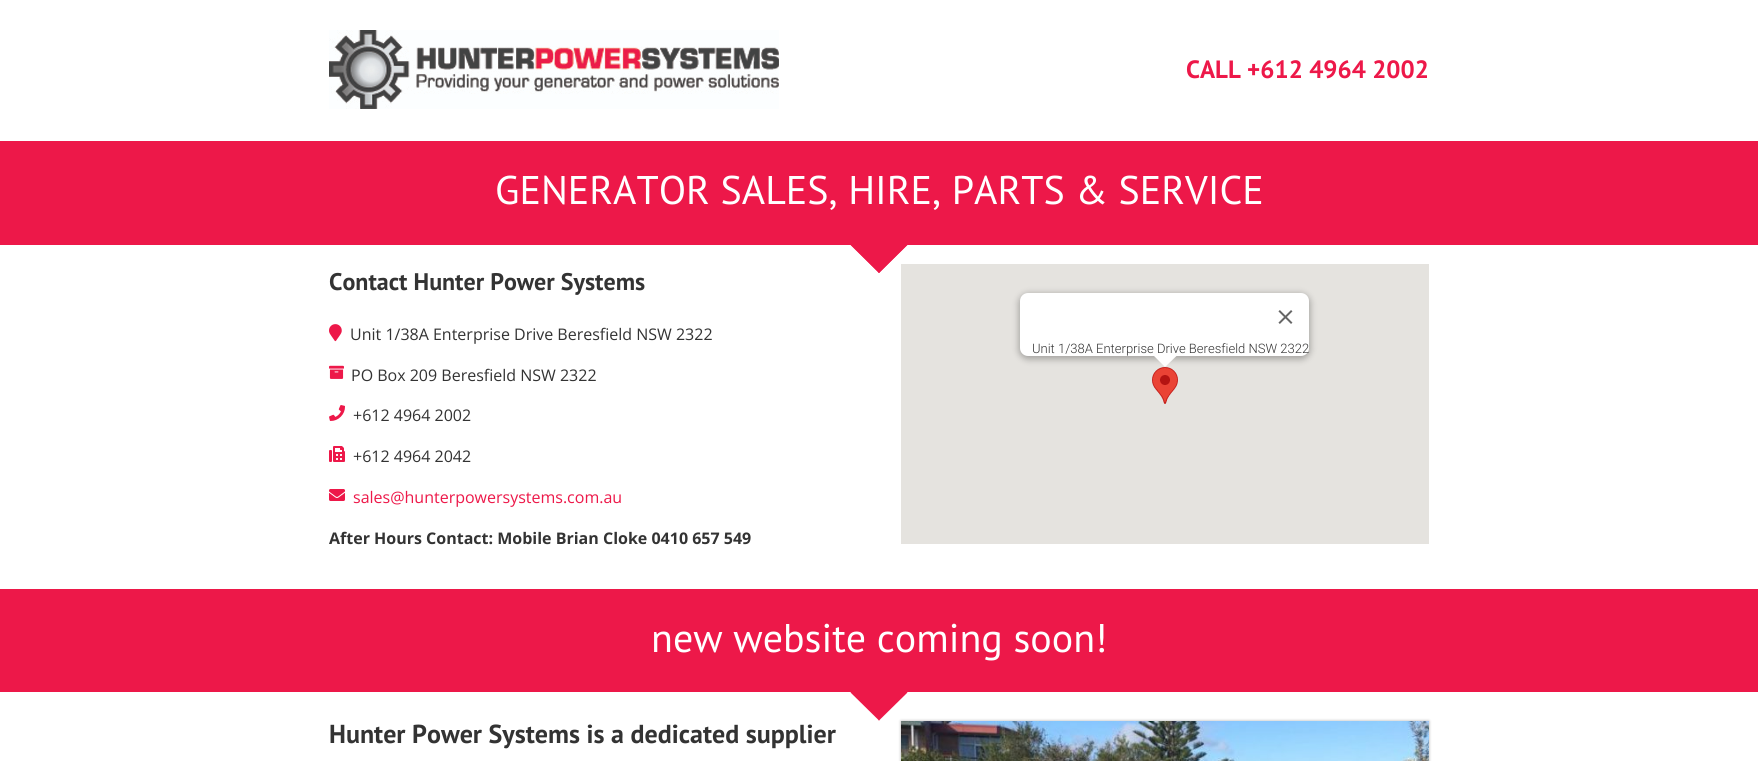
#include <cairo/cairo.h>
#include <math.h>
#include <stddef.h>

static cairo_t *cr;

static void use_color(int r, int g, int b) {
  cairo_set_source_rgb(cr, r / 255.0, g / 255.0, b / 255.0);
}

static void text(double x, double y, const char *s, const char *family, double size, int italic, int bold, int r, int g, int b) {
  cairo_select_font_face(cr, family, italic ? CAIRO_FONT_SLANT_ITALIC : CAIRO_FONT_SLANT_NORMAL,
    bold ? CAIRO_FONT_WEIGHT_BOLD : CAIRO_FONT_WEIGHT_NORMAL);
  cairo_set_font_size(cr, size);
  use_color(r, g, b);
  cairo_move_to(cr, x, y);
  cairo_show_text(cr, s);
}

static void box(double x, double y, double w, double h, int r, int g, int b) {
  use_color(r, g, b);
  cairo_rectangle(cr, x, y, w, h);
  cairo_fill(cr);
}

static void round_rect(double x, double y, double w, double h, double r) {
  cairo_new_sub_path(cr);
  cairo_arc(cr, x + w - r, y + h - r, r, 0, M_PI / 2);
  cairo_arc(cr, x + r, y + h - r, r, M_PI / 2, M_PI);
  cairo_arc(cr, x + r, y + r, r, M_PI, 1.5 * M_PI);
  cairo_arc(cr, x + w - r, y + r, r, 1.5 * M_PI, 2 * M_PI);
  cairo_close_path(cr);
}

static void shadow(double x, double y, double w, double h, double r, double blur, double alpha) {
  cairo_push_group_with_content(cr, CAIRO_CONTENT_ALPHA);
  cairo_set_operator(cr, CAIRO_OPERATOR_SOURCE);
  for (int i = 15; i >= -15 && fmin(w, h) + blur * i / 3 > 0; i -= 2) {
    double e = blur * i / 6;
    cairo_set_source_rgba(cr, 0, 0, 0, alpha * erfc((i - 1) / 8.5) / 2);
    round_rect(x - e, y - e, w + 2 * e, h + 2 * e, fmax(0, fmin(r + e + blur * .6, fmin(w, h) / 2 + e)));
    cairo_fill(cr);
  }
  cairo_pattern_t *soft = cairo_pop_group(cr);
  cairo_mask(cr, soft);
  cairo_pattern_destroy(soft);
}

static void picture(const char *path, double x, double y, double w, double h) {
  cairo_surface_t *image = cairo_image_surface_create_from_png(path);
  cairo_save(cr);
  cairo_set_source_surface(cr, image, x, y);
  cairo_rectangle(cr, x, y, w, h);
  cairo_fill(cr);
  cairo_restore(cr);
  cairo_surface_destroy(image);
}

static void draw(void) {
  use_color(255, 255, 255);
  cairo_paint(cr);
  picture("img_01.png", 329, 30, 450, 79);
  box(0, 141, 1758, 104, 237, 24, 73);
  cairo_new_path(cr);
  cairo_move_to(cr, 850, 244);
  cairo_line_to(cr, 908, 244);
  cairo_line_to(cr, 879, 273);
  cairo_close_path(cr);
  cairo_fill(cr);
  cairo_new_path(cr);
  cairo_move_to(cr, 878.5, 272.5);
  cairo_line_to(cr, 906.5, 244);
  cairo_line_to(cr, 907.5, 245);
  cairo_line_to(cr, 879, 273);
  cairo_close_path(cr);
  cairo_fill(cr);
  cairo_new_path(cr);
  cairo_move_to(cr, 850.5, 245);
  cairo_line_to(cr, 851.5, 244);
  cairo_line_to(cr, 879.5, 272.5);
  cairo_line_to(cr, 879, 273);
  cairo_close_path(cr);
  cairo_fill(cr);
  picture("img_02.png", 329, 324, 13, 18);
  picture("img_03.png", 329, 365, 15, 14);
  picture("img_04.png", 329, 405, 16, 16);
  picture("img_05.png", 329, 446, 16, 16);
  picture("img_06.png", 329, 489, 16, 12);
  box(901, 264, 528, 280, 229, 227, 223);
  picture("img_08.png", 1152, 367, 26, 37);
  use_color(0, 0, 0);
  shadow(1019, 294, 291, 65, 9, 3.5, 0.3);
  use_color(255, 255, 255);
  round_rect(1020, 293, 289, 63, 8);
  cairo_fill(cr);
  picture("img_07.png", 1278, 310, 15, 14);
  box(0, 589, 1758, 103, 237, 24, 73);
  cairo_new_path(cr);
  cairo_move_to(cr, 850, 691);
  cairo_line_to(cr, 908, 691);
  cairo_line_to(cr, 879, 720);
  cairo_close_path(cr);
  cairo_fill(cr);
  cairo_new_path(cr);
  cairo_move_to(cr, 878.5, 720);
  cairo_line_to(cr, 906.5, 691.5);
  cairo_line_to(cr, 907.5, 692.5);
  cairo_line_to(cr, 879, 720.5);
  cairo_close_path(cr);
  cairo_fill(cr);
  cairo_new_path(cr);
  cairo_move_to(cr, 850.5, 692.5);
  cairo_line_to(cr, 851.5, 691.5);
  cairo_line_to(cr, 879.5, 720);
  cairo_line_to(cr, 879, 720.5);
  cairo_close_path(cr);
  cairo_fill(cr);
  use_color(0, 0, 0);
  shadow(901, 721, 528, 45, 0, 1.5, 0.3);
  picture("img_09.png", 901, 721, 528, 40);
  text(1186, 78, "CALL +612 4964 2002", "PT Sans", 25, 0, 1, 237, 24, 73);
  text(495, 204, "GENERATOR SALES, HIRE, PARTS & SERVICE", "PT Sans", 40, 0, 0, 255, 255, 255);
  text(329, 290, "Contact Hunter Power Systems", "PT Sans", 24, 0, 1, 51, 51, 51);
  text(350, 340, "Unit 1/38A Enterprise Drive Beresfield NSW 2322", "Open Sans", 16, 0, 0, 51, 51, 51);
  text(351, 381, "PO Box 209 Beresfield NSW 2322", "Open Sans", 16, 0, 0, 51, 51, 51);
  text(353, 421, "+612 4964 2002", "Open Sans", 16, 0, 0, 51, 51, 51);
  text(353, 462, "+612 4964 2042", "Open Sans", 16, 0, 0, 51, 51, 51);
  text(353, 503, "sales@hunterpowersystems.com.au", "Open Sans", 16, 0, 0, 237, 24, 73);
  text(329, 544, "After Hours Contact: Mobile Brian Cloke 0410 657 549", "Open Sans", 16, 0, 1, 51, 51, 51);
  text(1032, 353, "Unit 1/38A Enterprise Drive Beresfield NSW 2322", "Roboto Light", 13, 0, 0, 51, 51, 51);
  use_color(255, 255, 255);
  cairo_new_path(cr);
  cairo_move_to(cr, 1153, 355);
  cairo_line_to(cr, 1165, 367);
  cairo_line_to(cr, 1177.5, 355);
  cairo_close_path(cr);
  cairo_fill(cr);
  text(651, 652, "new website coming soon!", "PT Sans", 40, 0, 0, 255, 255, 255);
  text(329, 743, "Hunter Power Systems is a dedicated supplier", "PT Sans", 26, 0, 1, 51, 51, 51);
}

int main(void) {
  cairo_surface_t *surface = cairo_image_surface_create(CAIRO_FORMAT_RGB24, 1758, 761);
  cr = cairo_create(surface);
  cairo_font_options_t *options = cairo_font_options_create();
  cairo_font_options_set_hint_metrics(options, CAIRO_HINT_METRICS_OFF);
  cairo_font_options_set_hint_style(options, CAIRO_HINT_STYLE_NONE);
  cairo_set_font_options(cr, options);
  cairo_set_miter_limit(cr, 4);
  draw();
  cairo_surface_write_to_png(surface, "out.png");
  cairo_font_options_destroy(options);
  cairo_destroy(cr);
  cairo_surface_destroy(surface);
  return 0;
}
